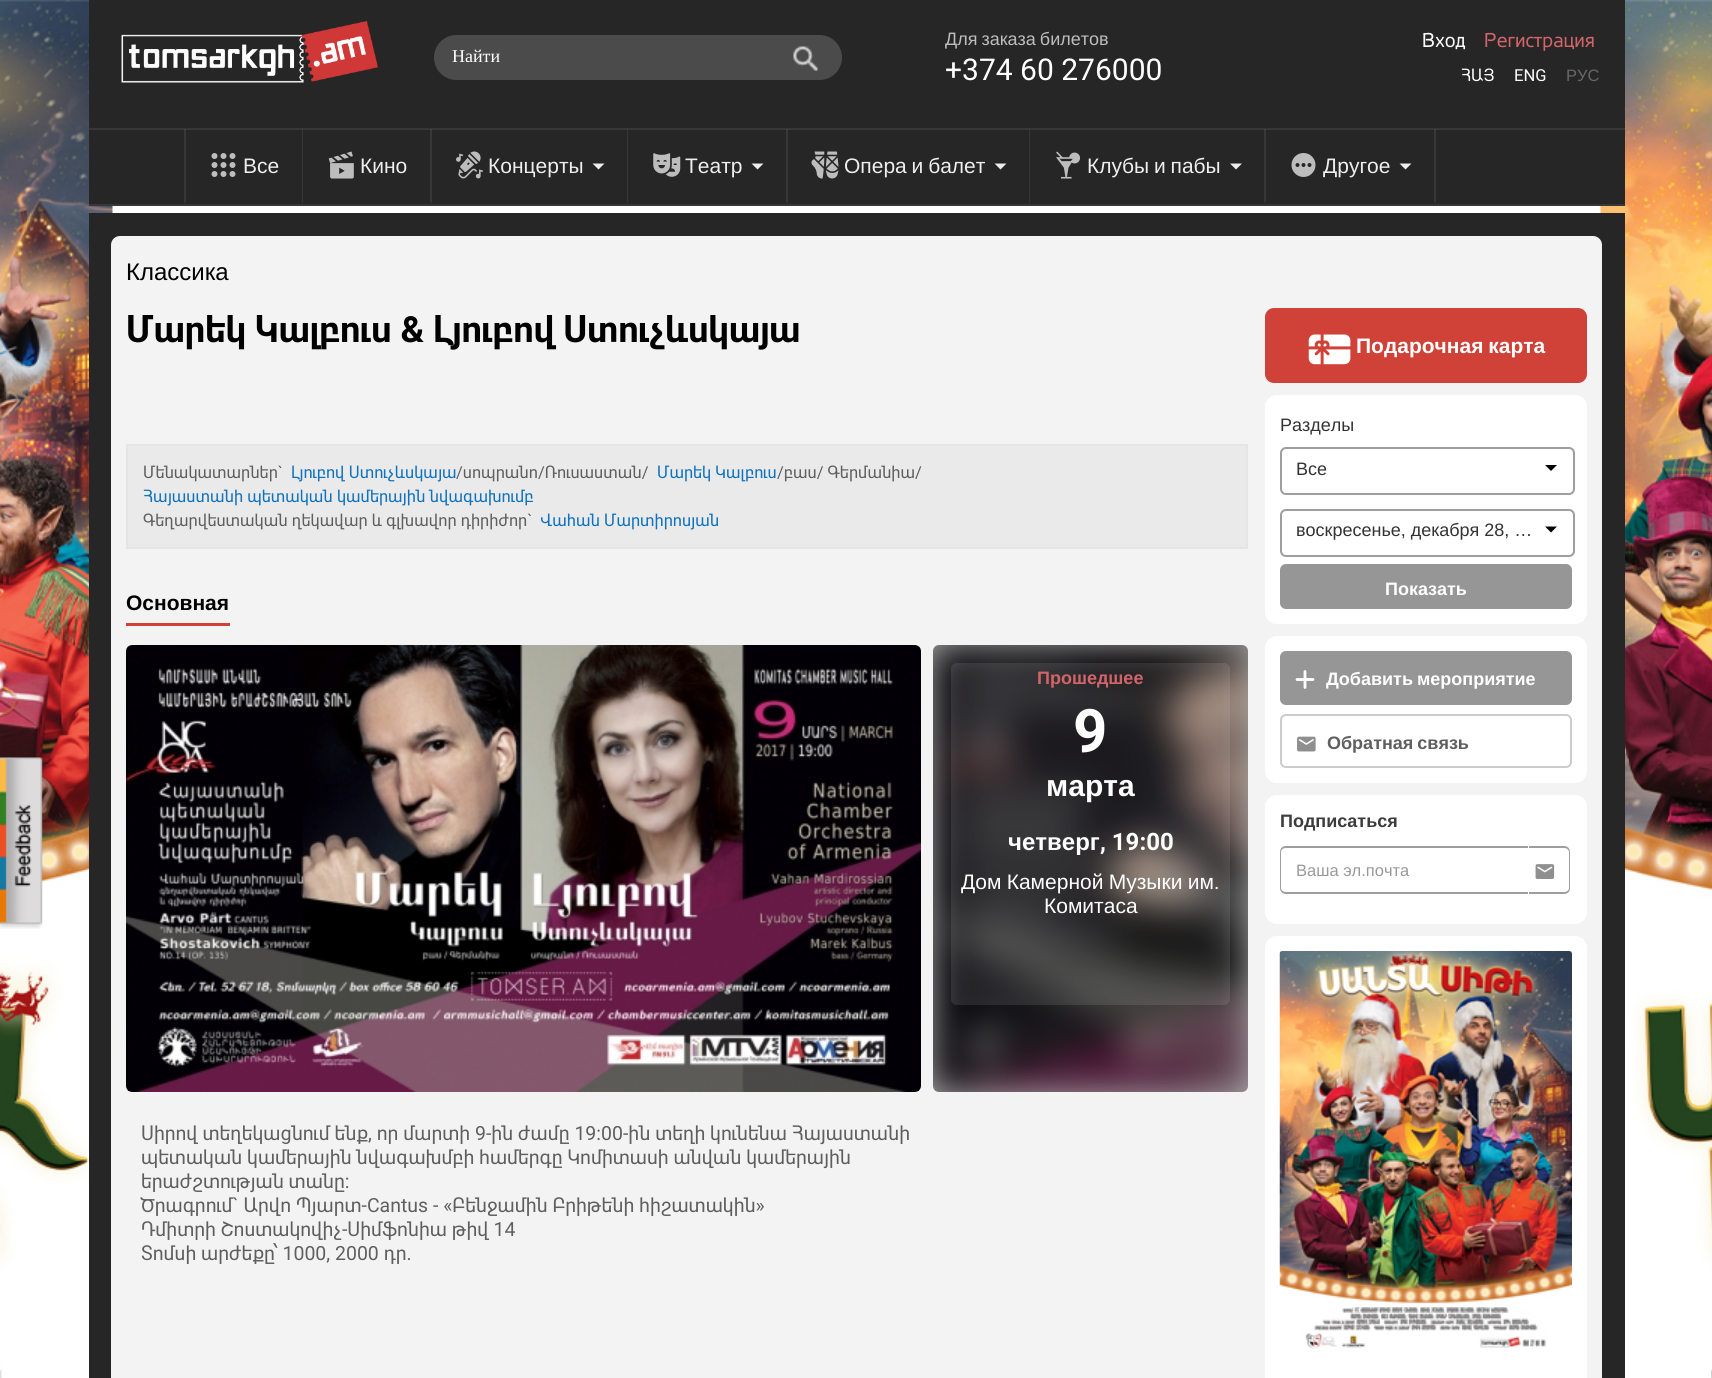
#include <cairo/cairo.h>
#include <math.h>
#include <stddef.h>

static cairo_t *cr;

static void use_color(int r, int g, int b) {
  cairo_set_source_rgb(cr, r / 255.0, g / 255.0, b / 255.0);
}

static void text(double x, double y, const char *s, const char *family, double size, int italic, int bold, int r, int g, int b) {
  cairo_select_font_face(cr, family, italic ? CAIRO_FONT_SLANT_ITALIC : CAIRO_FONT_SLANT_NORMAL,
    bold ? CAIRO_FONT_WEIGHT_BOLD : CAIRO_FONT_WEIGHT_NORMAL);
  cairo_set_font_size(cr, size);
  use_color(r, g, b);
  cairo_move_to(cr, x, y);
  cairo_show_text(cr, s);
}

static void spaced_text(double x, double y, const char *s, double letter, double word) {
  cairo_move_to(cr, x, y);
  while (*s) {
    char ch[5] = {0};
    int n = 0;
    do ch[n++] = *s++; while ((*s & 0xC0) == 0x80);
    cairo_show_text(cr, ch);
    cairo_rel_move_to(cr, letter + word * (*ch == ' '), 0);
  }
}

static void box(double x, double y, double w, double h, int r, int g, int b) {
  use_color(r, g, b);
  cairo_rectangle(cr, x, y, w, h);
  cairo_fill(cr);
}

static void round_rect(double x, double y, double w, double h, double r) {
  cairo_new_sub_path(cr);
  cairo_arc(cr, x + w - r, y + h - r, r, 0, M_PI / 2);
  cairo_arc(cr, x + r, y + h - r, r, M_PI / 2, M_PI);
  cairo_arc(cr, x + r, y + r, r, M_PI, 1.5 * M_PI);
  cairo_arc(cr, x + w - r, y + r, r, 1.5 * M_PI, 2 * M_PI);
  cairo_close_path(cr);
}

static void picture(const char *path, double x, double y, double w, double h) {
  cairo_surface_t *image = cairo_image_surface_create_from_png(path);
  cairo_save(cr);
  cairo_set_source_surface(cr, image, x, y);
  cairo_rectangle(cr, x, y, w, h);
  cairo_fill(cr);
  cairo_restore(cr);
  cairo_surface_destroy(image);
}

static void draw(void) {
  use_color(255, 255, 255);
  cairo_paint(cr);
  picture("img_01.png", 0, 0, 1712, 1378);
  box(89, 0, 1536, 204, 38, 38, 38);
  picture("img_02.png", 121, 21, 257, 62);
  use_color(75, 75, 75);
  round_rect(434, 35, 408, 45, 22.5);
  cairo_fill(cr);
  picture("img_03.png", 793, 46, 25, 25);
  box(89, 128, 1536, 2, 55, 55, 55);
  box(89, 204, 1536, 2, 55, 55, 55);
  cairo_set_source_rgba(cr, 1, 1, 1, 0.08);
  cairo_new_path(cr);
  cairo_move_to(cr, 303, 129);
  cairo_line_to(cr, 303, 204);
  cairo_line_to(cr, 302, 201);
  cairo_line_to(cr, 302, 129);
  cairo_close_path(cr);
  cairo_fill(cr);
  cairo_new_path(cr);
  cairo_move_to(cr, 184, 204);
  cairo_line_to(cr, 184, 129);
  cairo_line_to(cr, 186, 129);
  cairo_line_to(cr, 186, 201);
  cairo_close_path(cr);
  cairo_fill(cr);
  picture("img_04.png", 211, 153, 25, 24);
  cairo_new_path(cr);
  cairo_move_to(cr, 432, 129);
  cairo_line_to(cr, 432, 204);
  cairo_line_to(cr, 430, 201);
  cairo_line_to(cr, 430, 129);
  cairo_close_path(cr);
  cairo_fill(cr);
  picture("img_05.png", 328, 151, 26, 28);
  cairo_new_path(cr);
  cairo_move_to(cr, 628, 129);
  cairo_line_to(cr, 628, 204);
  cairo_line_to(cr, 627, 201);
  cairo_line_to(cr, 627, 129);
  cairo_close_path(cr);
  cairo_fill(cr);
  picture("img_06.png", 456, 151, 27, 28);
  use_color(238, 238, 238);
  cairo_new_path(cr);
  cairo_move_to(cr, 592.5, 163.5);
  cairo_line_to(cr, 604.5, 163.5);
  cairo_line_to(cr, 598.5, 169.5);
  cairo_close_path(cr);
  cairo_fill(cr);
  cairo_set_source_rgba(cr, 1, 1, 1, 0.08);
  cairo_new_path(cr);
  cairo_move_to(cr, 788, 129);
  cairo_line_to(cr, 788, 204);
  cairo_line_to(cr, 786, 201);
  cairo_line_to(cr, 786, 129);
  cairo_close_path(cr);
  cairo_fill(cr);
  picture("img_07.png", 653, 153, 28, 24);
  use_color(238, 238, 238);
  cairo_new_path(cr);
  cairo_move_to(cr, 751.5, 163.5);
  cairo_line_to(cr, 763.5, 163.5);
  cairo_line_to(cr, 757.5, 169.5);
  cairo_close_path(cr);
  cairo_fill(cr);
  cairo_set_source_rgba(cr, 1, 1, 1, 0.08);
  cairo_new_path(cr);
  cairo_move_to(cr, 1030, 129);
  cairo_line_to(cr, 1030, 204);
  cairo_line_to(cr, 1029, 201);
  cairo_line_to(cr, 1029, 129);
  cairo_close_path(cr);
  cairo_fill(cr);
  picture("img_08.png", 811, 151, 28, 28);
  use_color(238, 238, 238);
  cairo_new_path(cr);
  cairo_move_to(cr, 994.5, 163.5);
  cairo_line_to(cr, 1006.5, 163.5);
  cairo_line_to(cr, 1000.5, 169.5);
  cairo_close_path(cr);
  cairo_fill(cr);
  cairo_set_source_rgba(cr, 1, 1, 1, 0.08);
  cairo_new_path(cr);
  cairo_move_to(cr, 1266, 129);
  cairo_line_to(cr, 1266, 204);
  cairo_line_to(cr, 1264, 201);
  cairo_line_to(cr, 1264, 129);
  cairo_close_path(cr);
  cairo_fill(cr);
  picture("img_09.png", 1056, 151, 24, 28);
  use_color(238, 238, 238);
  cairo_new_path(cr);
  cairo_move_to(cr, 1230, 163.5);
  cairo_line_to(cr, 1242, 163.5);
  cairo_line_to(cr, 1236, 169.5);
  cairo_close_path(cr);
  cairo_fill(cr);
  cairo_set_source_rgba(cr, 1, 1, 1, 0.08);
  cairo_new_path(cr);
  cairo_move_to(cr, 1436, 129);
  cairo_line_to(cr, 1436, 204);
  cairo_line_to(cr, 1434, 201);
  cairo_line_to(cr, 1434, 129);
  cairo_close_path(cr);
  cairo_fill(cr);
  picture("img_10.png", 1291, 153, 25, 24);
  use_color(238, 238, 238);
  cairo_new_path(cr);
  cairo_move_to(cr, 1399.5, 163.5);
  cairo_line_to(cr, 1411.5, 163.5);
  cairo_line_to(cr, 1405.5, 169.5);
  cairo_close_path(cr);
  cairo_fill(cr);
  picture("img_11.png", 0, 757, 43, 172);
  box(89, 213, 1536, 1165, 38, 38, 38);
  use_color(243, 243, 243);
  cairo_new_path(cr);
  cairo_move_to(cr, 120, 236);
  cairo_line_to(cr, 1593, 236);
  cairo_curve_to(cr, 1598, 236, 1602, 240, 1602, 245);
  cairo_line_to(cr, 1602, 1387);
  cairo_line_to(cr, 111, 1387);
  cairo_line_to(cr, 111, 245);
  cairo_curve_to(cr, 111, 240, 115, 236, 120, 236);
  cairo_close_path(cr);
  cairo_fill(cr);
  use_color(234, 234, 234);
  cairo_rectangle(cr, 127, 445, 1120, 103);
  cairo_fill_preserve(cr);
  use_color(229, 229, 229);
  cairo_stroke(cr);
  box(126, 623, 104, 3, 208, 65, 55);
  picture("img_12.png", 126, 645, 795, 447);
  picture("img_13.png", 933, 645, 315, 447);
  cairo_set_source_rgba(cr, 0, 0, 0, 0.3);
  round_rect(933, 645, 315, 447, 6);
  cairo_fill(cr);
  cairo_set_source_rgba(cr, 1, 1, 1, 0.1);
  round_rect(951, 663, 279, 342, 6);
  cairo_fill(cr);
  use_color(208, 65, 55);
  round_rect(1265, 308, 322, 75, 9);
  cairo_fill(cr);
  picture("img_14.png", 1308, 334, 43, 31);
  use_color(255, 255, 255);
  round_rect(1265, 395, 322, 229, 12);
  cairo_fill(cr);
  round_rect(1281, 448, 293, 46, 5);
  use_color(158, 158, 158);
  cairo_stroke(cr);
  use_color(0, 0, 0);
  cairo_new_path(cr);
  cairo_move_to(cr, 1545, 465);
  cairo_line_to(cr, 1557, 465);
  cairo_line_to(cr, 1551, 471);
  cairo_close_path(cr);
  cairo_fill(cr);
  round_rect(1281, 510, 293, 46, 5);
  use_color(158, 158, 158);
  cairo_stroke(cr);
  use_color(0, 0, 0);
  cairo_new_path(cr);
  cairo_move_to(cr, 1545, 526.5);
  cairo_line_to(cr, 1557, 526.5);
  cairo_line_to(cr, 1551, 532.5);
  cairo_close_path(cr);
  cairo_fill(cr);
  use_color(150, 150, 150);
  round_rect(1280, 564, 292, 45, 6);
  cairo_fill(cr);
  use_color(255, 255, 255);
  round_rect(1265, 636, 322, 147, 12);
  cairo_fill(cr);
  use_color(150, 150, 150);
  round_rect(1280, 651, 292, 54, 6);
  cairo_fill(cr);
  picture("img_15.png", 1295, 670, 20, 19);
  round_rect(1281, 715, 290, 52, 5);
  use_color(204, 204, 204);
  cairo_stroke(cr);
  picture("img_16.png", 1297, 736, 19, 16);
  use_color(255, 255, 255);
  round_rect(1265, 795, 322, 129, 12);
  cairo_fill(cr);
  use_color(158, 158, 158);
  cairo_set_fill_rule(cr, CAIRO_FILL_RULE_EVEN_ODD);
  cairo_new_path(cr);
  cairo_move_to(cr, 1527, 846);
  cairo_line_to(cr, 1564, 846);
  cairo_curve_to(cr, 1568, 846, 1570, 849, 1570, 852);
  cairo_line_to(cr, 1570, 888);
  cairo_curve_to(cr, 1570, 891, 1568, 894, 1564, 894);
  cairo_line_to(cr, 1527, 894);
  cairo_close_path(cr);
  cairo_move_to(cr, 1527, 848);
  cairo_line_to(cr, 1564, 848);
  cairo_curve_to(cr, 1567, 848, 1569, 850, 1569, 852);
  cairo_line_to(cr, 1569, 888);
  cairo_curve_to(cr, 1569, 890, 1567, 892, 1564, 892);
  cairo_line_to(cr, 1527, 892);
  cairo_close_path(cr);
  cairo_fill(cr);
  use_color(255, 255, 255);
  cairo_new_path(cr);
  cairo_move_to(cr, 1286, 846);
  cairo_line_to(cr, 1529, 846);
  cairo_line_to(cr, 1529, 894);
  cairo_line_to(cr, 1286, 894);
  cairo_curve_to(cr, 1282.5, 894, 1280, 891.5, 1280, 888);
  cairo_line_to(cr, 1280, 852);
  cairo_curve_to(cr, 1280, 848.5, 1282.5, 846, 1286, 846);
  cairo_close_path(cr);
  cairo_fill(cr);
  use_color(158, 158, 158);
  cairo_new_path(cr);
  cairo_move_to(cr, 1286, 846);
  cairo_line_to(cr, 1528, 846);
  cairo_line_to(cr, 1528, 894);
  cairo_line_to(cr, 1286, 894);
  cairo_curve_to(cr, 1282, 894, 1280, 891, 1280, 888);
  cairo_line_to(cr, 1280, 852);
  cairo_curve_to(cr, 1280, 849, 1282, 846, 1286, 846);
  cairo_close_path(cr);
  cairo_move_to(cr, 1286, 848);
  cairo_line_to(cr, 1528, 848);
  cairo_line_to(cr, 1528, 892);
  cairo_line_to(cr, 1286, 892);
  cairo_curve_to(cr, 1283, 892, 1281, 890, 1281, 888);
  cairo_line_to(cr, 1281, 852);
  cairo_curve_to(cr, 1281, 850, 1283, 848, 1286, 848);
  cairo_close_path(cr);
  cairo_fill(cr);
  picture("img_17.png", 1535, 864, 20, 15);
  use_color(255, 255, 255);
  round_rect(1265, 936, 322, 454, 12);
  cairo_fill(cr);
  picture("img_18.png", 1279, 951, 293, 398);
  cairo_select_font_face(cr, "Liberation Sans", CAIRO_FONT_SLANT_NORMAL, CAIRO_FONT_WEIGHT_NORMAL);
  cairo_set_font_size(cr, 18);
  use_color(189, 189, 189);
  spaced_text(945, 45, "Для заказа билетов", 0, -1);
  text(945, 80, "+374 60 276000", "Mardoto", 30, 0, 0, 255, 255, 255);
  text(1422, 47, "Вход", "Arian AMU", 19.5, 0, 0, 255, 255, 255);
  text(1484, 47, "Регистрация", "Arian AMU", 19.5, 0, 0, 211, 100, 106);
  text(452, 62, "Найти", "Liberation Serif", 18, 0, 0, 255, 255, 255);
  text(1461, 81, "ՀԱՅ", "Mardoto", 16.5, 0, 0, 255, 255, 255);
  text(1514, 81, "ENG", "Mardoto", 16.5, 0, 0, 255, 255, 255);
  text(1566, 81, "РУС", "Liberation Sans", 16.5, 0, 0, 103, 103, 103);
  text(243, 173, "Все", "Liberation Sans", 21, 0, 0, 238, 238, 238);
  text(360, 173, "Кино", "Liberation Sans", 21, 0, 0, 238, 238, 238);
  text(488, 173, "Концерты", "Liberation Sans", 21, 0, 0, 238, 238, 238);
  text(685, 173, "Театр", "Liberation Sans", 21, 0, 0, 238, 238, 238);
  spaced_text(844, 173, "Опера и балет", 0, -1);
  spaced_text(1087, 173, "Клубы и пабы", 0, -1);
  text(1323, 173, "Другое", "Liberation Sans", 21, 0, 0, 238, 238, 238);
  text(126, 280, "Классика", "Liberation Sans", 24, 0, 0, 0, 0, 0);
  text(126, 342, "Մարեկ Կալբուս & Լյուբով Ստուչևսկայա", "Mardoto", 36, 0, 1, 0, 0, 0);
  text(143, 478, "Մենակատարներ`", "Mardoto", 16.5, 0, 0, 95, 95, 95);
  text(291, 478, "Լյուբով Ստուչևսկայա", "Mardoto", 16.5, 0, 0, 15, 114, 190);
  text(456, 478, "/սոպրանո/Ռուսաստան/", "Mardoto", 16.5, 0, 0, 95, 95, 95);
  text(657, 478, "Մարեկ Կալբուս", "Mardoto", 16.5, 0, 0, 15, 114, 190);
  text(777, 478, "/բաս/ Գերմանիա/", "Mardoto", 16.5, 0, 0, 95, 95, 95);
  text(143, 502, "Հայաստանի պետական կամերային նվագախումբ", "Mardoto", 16.5, 0, 0, 15, 114, 190);
  text(143, 526, "Գեղարվեստական ղեկավար և գլխավոր դիրիժոր`", "Mardoto", 16.5, 0, 0, 95, 95, 95);
  text(540, 526, "Վահան Մարտիրոսյան", "Mardoto", 16.5, 0, 0, 15, 114, 190);
  text(126, 610, "Основная", "Liberation Sans", 21, 0, 1, 0, 0, 0);
  text(1037, 684, "Прошедшее", "Liberation Sans", 18, 0, 1, 211, 100, 106);
  text(1073, 752, "9", "Mardoto", 60, 0, 1, 255, 255, 255);
  text(1046, 796, "марта", "Liberation Sans", 30, 0, 1, 255, 255, 255);
  text(1008, 850, "четверг", "Liberation Sans", 24, 0, 1, 255, 255, 255);
  text(1100, 850, ", 19:00", "Mardoto", 24, 0, 1, 255, 255, 255);
  cairo_select_font_face(cr, "Liberation Sans", CAIRO_FONT_SLANT_NORMAL, CAIRO_FONT_WEIGHT_NORMAL);
  cairo_set_font_size(cr, 21);
  spaced_text(961, 889, "Дом Камерной Музыки им", 0, -0.5);
  text(1214, 889, ".", "Mardoto", 21, 0, 0, 255, 255, 255);
  text(1044, 913, "Комитаса", "Liberation Sans", 21, 0, 0, 255, 255, 255);
  text(141, 1140, "Սիրով տեղեկացնում ենք, որ մարտի 9-ին ժամը 19:00-ին տեղի կունենա Հայաստանի", "Mardoto", 19.5, 0, 0, 95, 95, 95);
  text(141, 1164, "պետական կամերային նվագախմբի համերգը Կոմիտասի անվան կամերային", "Mardoto", 19.5, 0, 0, 95, 95, 95);
  text(141, 1188, "երաժշտության տանը:", "Mardoto", 19.5, 0, 0, 95, 95, 95);
  text(141, 1212, "Ծրագրում` Արվո Պյարտ-Cantus - «Բենջամին Բրիթենի հիշատակին»", "Mardoto", 19.5, 0, 0, 95, 95, 95);
  text(141, 1236, "Դմիտրի Շոստակովիչ-Սիմֆոնիա թիվ 14", "Mardoto", 19.5, 0, 0, 95, 95, 95);
  text(141, 1260, "Տոմսի արժեքը՝ 1000, 2000 դր.", "Mardoto", 19.5, 0, 0, 95, 95, 95);
  cairo_select_font_face(cr, "Liberation Sans", CAIRO_FONT_SLANT_NORMAL, CAIRO_FONT_WEIGHT_BOLD);
  cairo_set_font_size(cr, 21);
  use_color(255, 255, 255);
  spaced_text(1356, 353, "Подарочная карта", 0, -1);
  text(1280, 431, "Разделы", "Liberation Sans", 18, 0, 0, 51, 51, 51);
  text(1296, 475, "Все", "Liberation Sans", 18, 0, 0, 51, 51, 51);
  text(1296, 536, "воскресенье, декабря 28, …", "Liberation Sans", 18, 0, 0, 51, 51, 51);
  text(1385, 595, "Показать", "Liberation Sans", 18, 0, 1, 255, 255, 255);
  spaced_text(1326, 685, "Добавить мероприятие", 0, -1);
  use_color(95, 95, 95);
  spaced_text(1327, 749, "Обратная связь", 0, -1);
  text(1280, 827, "Подписаться", "Liberation Sans", 18, 0, 1, 60, 60, 60);
  text(1296, 876, "Ваша эл.почта", "Liberation Sans", 16.5, 0, 0, 153, 153, 153);
}

int main(void) {
  cairo_surface_t *surface = cairo_image_surface_create(CAIRO_FORMAT_RGB24, 1712, 1378);
  cr = cairo_create(surface);
  cairo_font_options_t *options = cairo_font_options_create();
  cairo_font_options_set_hint_metrics(options, CAIRO_HINT_METRICS_OFF);
  cairo_font_options_set_hint_style(options, CAIRO_HINT_STYLE_NONE);
  cairo_set_font_options(cr, options);
  cairo_set_miter_limit(cr, 4);
  draw();
  cairo_surface_write_to_png(surface, "out.png");
  cairo_font_options_destroy(options);
  cairo_destroy(cr);
  cairo_surface_destroy(surface);
  return 0;
}
